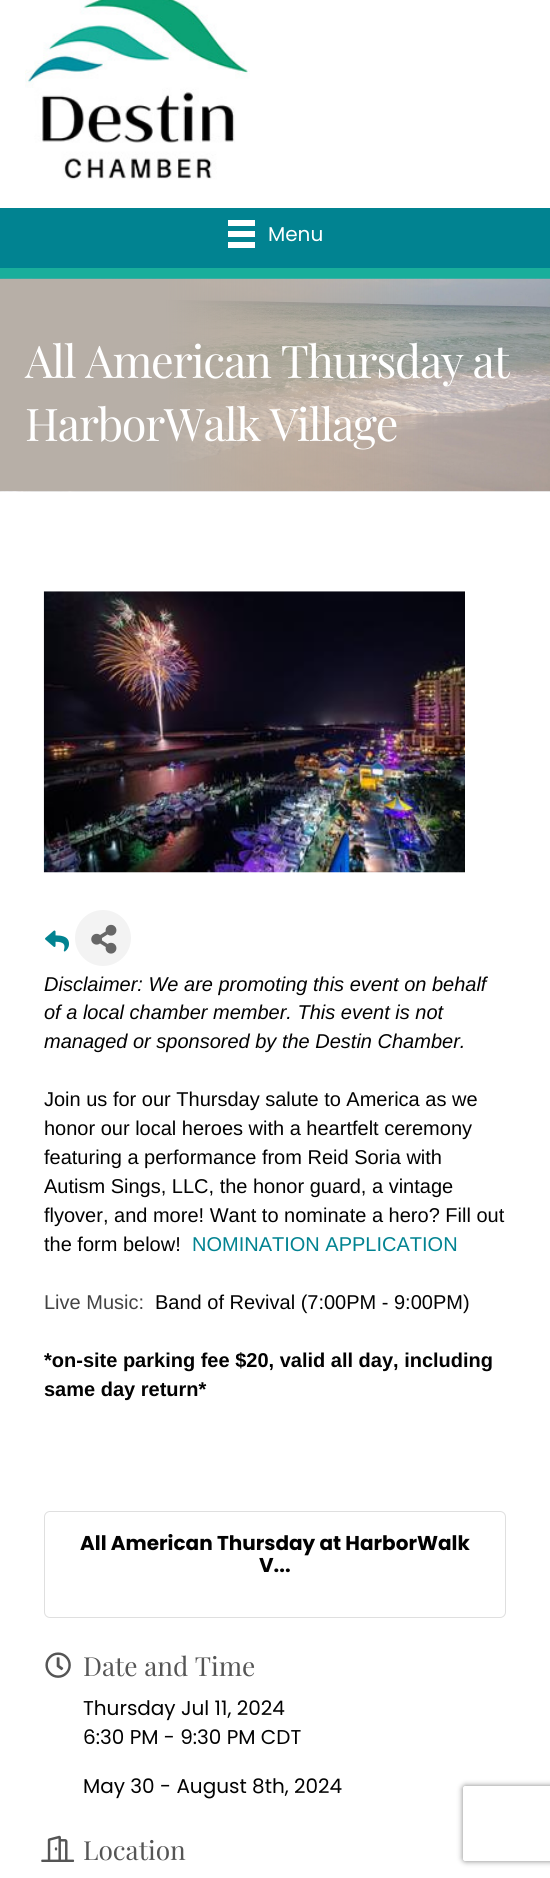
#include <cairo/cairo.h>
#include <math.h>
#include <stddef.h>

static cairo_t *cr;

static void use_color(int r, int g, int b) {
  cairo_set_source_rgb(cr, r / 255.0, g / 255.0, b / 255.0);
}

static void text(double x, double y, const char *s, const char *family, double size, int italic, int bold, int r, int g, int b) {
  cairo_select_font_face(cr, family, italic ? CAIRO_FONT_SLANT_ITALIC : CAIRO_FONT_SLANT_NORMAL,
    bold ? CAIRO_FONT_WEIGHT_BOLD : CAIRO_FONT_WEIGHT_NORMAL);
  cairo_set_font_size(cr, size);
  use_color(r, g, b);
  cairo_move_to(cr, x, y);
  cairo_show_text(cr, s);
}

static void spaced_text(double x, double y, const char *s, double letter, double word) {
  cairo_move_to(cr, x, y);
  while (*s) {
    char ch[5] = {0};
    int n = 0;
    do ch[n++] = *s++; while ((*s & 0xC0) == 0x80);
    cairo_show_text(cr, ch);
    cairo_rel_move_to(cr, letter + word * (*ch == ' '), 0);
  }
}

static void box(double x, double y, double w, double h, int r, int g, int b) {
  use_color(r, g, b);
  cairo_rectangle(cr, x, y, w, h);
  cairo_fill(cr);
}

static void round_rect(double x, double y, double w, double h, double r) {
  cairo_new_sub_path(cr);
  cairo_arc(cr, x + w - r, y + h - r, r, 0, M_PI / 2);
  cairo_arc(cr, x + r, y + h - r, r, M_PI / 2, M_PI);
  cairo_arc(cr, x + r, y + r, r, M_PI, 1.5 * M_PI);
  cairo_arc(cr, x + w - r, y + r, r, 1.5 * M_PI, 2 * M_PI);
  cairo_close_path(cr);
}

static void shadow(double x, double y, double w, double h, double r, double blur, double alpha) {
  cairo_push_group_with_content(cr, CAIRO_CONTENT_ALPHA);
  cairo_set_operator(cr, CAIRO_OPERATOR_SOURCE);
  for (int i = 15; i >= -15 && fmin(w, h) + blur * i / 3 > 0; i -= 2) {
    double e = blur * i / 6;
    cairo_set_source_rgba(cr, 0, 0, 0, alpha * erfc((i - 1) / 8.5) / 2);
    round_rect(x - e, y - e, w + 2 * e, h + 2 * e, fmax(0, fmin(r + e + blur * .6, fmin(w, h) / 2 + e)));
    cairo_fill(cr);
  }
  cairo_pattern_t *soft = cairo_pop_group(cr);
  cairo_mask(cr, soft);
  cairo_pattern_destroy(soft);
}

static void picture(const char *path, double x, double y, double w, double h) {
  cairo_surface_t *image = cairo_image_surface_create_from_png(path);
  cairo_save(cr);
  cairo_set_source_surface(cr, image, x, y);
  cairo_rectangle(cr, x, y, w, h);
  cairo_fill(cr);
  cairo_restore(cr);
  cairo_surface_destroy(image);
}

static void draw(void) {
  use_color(255, 255, 255);
  cairo_paint(cr);
  picture("img_01.png", 25, 0, 225, 180);
  box(0, 208, 550, 60, 1, 131, 145);
  box(0, 268, 550, 11, 25, 174, 155);
  box(228, 220, 27, 6, 255, 255, 255);
  box(228, 231, 27, 6, 255, 255, 255);
  box(228, 242, 27, 6, 255, 255, 255);
  picture("img_02.png", 0, 278, 550, 214);
  picture("img_03.png", 43, 591, 422, 282);
  picture("img_04.png", 45, 930, 24, 22);
  use_color(243, 243, 243);
  cairo_arc(cr, 103, 938, 28, 0, 2 * M_PI);
  cairo_fill(cr);
  picture("img_05.png", 91, 924, 26, 30);
  round_rect(44.5, 1511.5, 461, 106, 5.5);
  use_color(223, 223, 223);
  cairo_set_line_width(cr, 1);
  cairo_stroke(cr);
  picture("img_06.png", 45, 1652, 26, 26);
  picture("img_07.png", 41, 1835, 34, 27);
  cairo_save(cr);
  cairo_set_fill_rule(cr, CAIRO_FILL_RULE_EVEN_ODD);
  cairo_new_path(cr);
  cairo_move_to(cr, 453, 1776);
  cairo_line_to(cr, 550, 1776);
  cairo_line_to(cr, 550, 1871);
  cairo_line_to(cr, 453, 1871);
  cairo_close_path(cr);
  cairo_move_to(cr, 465.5, 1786);
  cairo_line_to(cr, 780.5, 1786);
  cairo_curve_to(cr, 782, 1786, 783, 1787, 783, 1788.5);
  cairo_line_to(cr, 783, 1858.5);
  cairo_curve_to(cr, 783, 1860, 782, 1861, 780.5, 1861);
  cairo_line_to(cr, 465.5, 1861);
  cairo_curve_to(cr, 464, 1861, 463, 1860, 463, 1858.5);
  cairo_line_to(cr, 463, 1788.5);
  cairo_curve_to(cr, 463, 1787, 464, 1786, 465.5, 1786);
  cairo_close_path(cr);
  cairo_clip(cr);
  use_color(128, 128, 128);
  shadow(463, 1786, 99, 75, 2.5, 3, 1);
  cairo_restore(cr);
  text(268, 241, "Menu", "Poppins", 20, 0, 0, 255, 255, 255);
  cairo_select_font_face(cr, "Playfair Display", CAIRO_FONT_SLANT_NORMAL, CAIRO_FONT_WEIGHT_NORMAL);
  cairo_set_font_size(cr, 45);
  spaced_text(25, 378, "All American Thursday at", -1.25, 0);
  spaced_text(25, 441, "HarborWalk Village", -1.25, 0);
  text(44, 991, "Disclaimer: We are promoting this event on behalf", "Liberation Sans", 20, 1, 0, 2, 2, 2);
  text(44, 1019, "of a local chamber member. This event is not", "Liberation Sans", 20, 1, 0, 2, 2, 2);
  text(44, 1048, "managed or sponsored by the Destin Chamber.", "Liberation Sans", 20, 1, 0, 2, 2, 2);
  text(44, 1106, "Join us for our Thursday salute to America as we", "Liberation Sans", 20, 0, 0, 2, 2, 2);
  text(44, 1135, "honor our local heroes with a heartfelt ceremony", "Liberation Sans", 20, 0, 0, 2, 2, 2);
  text(44, 1164, "featuring a performance from Reid Soria with", "Liberation Sans", 20, 0, 0, 2, 2, 2);
  text(44, 1193, "Autism Sings, LLC, the honor guard, a vintage", "Liberation Sans", 20, 0, 0, 2, 2, 2);
  text(44, 1222, "flyover, and more! Want to nominate a hero? Fill out", "Liberation Sans", 20, 0, 0, 2, 2, 2);
  text(44, 1251, "the form below!", "Liberation Sans", 20, 0, 0, 2, 2, 2);
  text(192, 1251, "NOMINATION APPLICATION", "Liberation Sans", 20, 0, 0, 1, 131, 145);
  text(44, 1309, "Live Music:", "Liberation Sans", 20, 0, 0, 67, 67, 67);
  text(155, 1309, "Band of Revival (7:00PM - 9:00PM)", "Liberation Sans", 20, 0, 0, 2, 2, 2);
  text(44, 1367, "*on-site parking fee $20, valid all day, including", "Liberation Sans", 20, 0, 1, 2, 2, 2);
  text(44, 1396, "same day return*", "Liberation Sans", 20, 0, 1, 2, 2, 2);
  text(80, 1550, "All American Thursday at HarborWalk", "Poppins", 20, 0, 1, 2, 2, 2);
  text(259, 1572, "V...", "Poppins", 20, 0, 1, 2, 2, 2);
  text(83, 1676, "Date and Time", "Playfair Display", 26.25, 0, 0, 85, 85, 85);
  text(83, 1715, "Thursday Jul 11, 2024", "Poppins", 20, 0, 0, 2, 2, 2);
  text(83, 1744, "6:30 PM - 9:30 PM CDT", "Poppins", 20, 0, 0, 2, 2, 2);
  text(83, 1793, "May 30 - August 8th, 2024", "Poppins", 20, 0, 0, 2, 2, 2);
  text(83, 1860, "Location", "Playfair Display", 26.25, 0, 0, 85, 85, 85);
}

int main(void) {
  cairo_surface_t *surface = cairo_image_surface_create(CAIRO_FORMAT_RGB24, 550, 1878);
  cr = cairo_create(surface);
  cairo_font_options_t *options = cairo_font_options_create();
  cairo_font_options_set_hint_metrics(options, CAIRO_HINT_METRICS_OFF);
  cairo_font_options_set_hint_style(options, CAIRO_HINT_STYLE_NONE);
  cairo_set_font_options(cr, options);
  cairo_set_miter_limit(cr, 4);
  draw();
  cairo_surface_write_to_png(surface, "out.png");
  cairo_font_options_destroy(options);
  cairo_destroy(cr);
  cairo_surface_destroy(surface);
  return 0;
}
